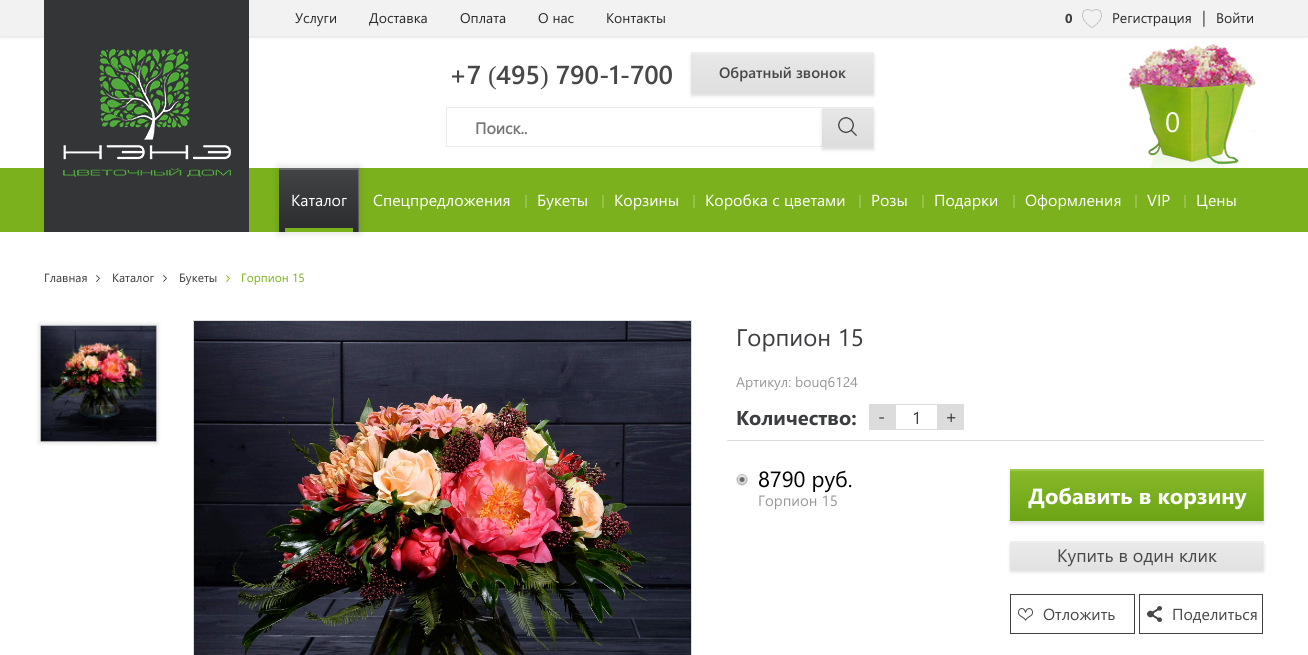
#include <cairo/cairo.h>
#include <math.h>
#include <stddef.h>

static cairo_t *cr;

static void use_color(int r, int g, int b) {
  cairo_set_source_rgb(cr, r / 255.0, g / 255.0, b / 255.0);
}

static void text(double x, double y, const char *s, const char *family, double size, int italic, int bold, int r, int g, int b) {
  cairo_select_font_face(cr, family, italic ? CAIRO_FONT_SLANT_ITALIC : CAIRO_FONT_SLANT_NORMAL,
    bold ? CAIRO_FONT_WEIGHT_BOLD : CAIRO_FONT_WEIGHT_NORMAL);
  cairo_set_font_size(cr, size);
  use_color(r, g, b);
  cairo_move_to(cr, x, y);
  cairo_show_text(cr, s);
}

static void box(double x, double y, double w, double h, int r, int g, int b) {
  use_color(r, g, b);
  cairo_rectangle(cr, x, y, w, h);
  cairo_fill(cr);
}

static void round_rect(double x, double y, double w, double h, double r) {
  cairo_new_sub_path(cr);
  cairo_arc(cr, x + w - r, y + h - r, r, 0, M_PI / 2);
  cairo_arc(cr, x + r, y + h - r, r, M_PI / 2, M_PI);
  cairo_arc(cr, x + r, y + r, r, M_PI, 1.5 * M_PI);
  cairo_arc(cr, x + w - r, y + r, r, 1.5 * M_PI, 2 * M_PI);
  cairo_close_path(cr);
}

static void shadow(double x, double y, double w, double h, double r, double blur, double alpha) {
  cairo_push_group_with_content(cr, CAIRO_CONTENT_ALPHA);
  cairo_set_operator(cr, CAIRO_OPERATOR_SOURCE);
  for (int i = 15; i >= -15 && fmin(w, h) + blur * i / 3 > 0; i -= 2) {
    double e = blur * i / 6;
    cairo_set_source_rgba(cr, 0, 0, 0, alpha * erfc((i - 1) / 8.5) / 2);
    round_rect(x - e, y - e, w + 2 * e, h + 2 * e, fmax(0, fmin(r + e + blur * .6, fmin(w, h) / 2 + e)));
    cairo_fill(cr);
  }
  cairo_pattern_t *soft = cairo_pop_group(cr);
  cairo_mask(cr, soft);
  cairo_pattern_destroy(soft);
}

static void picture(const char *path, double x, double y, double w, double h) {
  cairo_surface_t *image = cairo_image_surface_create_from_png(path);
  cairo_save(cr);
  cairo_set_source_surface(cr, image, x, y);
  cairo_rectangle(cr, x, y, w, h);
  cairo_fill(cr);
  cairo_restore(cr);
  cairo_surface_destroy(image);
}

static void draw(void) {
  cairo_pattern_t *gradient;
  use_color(255, 255, 255);
  cairo_paint(cr);
  use_color(0, 0, 0);
  shadow(0, 1, 1308, 36, 0, 1.5, 0.14);
  box(0, 0, 1308, 36, 242, 242, 242);
  picture("img_01.png", 1082, 9, 20, 19);
  box(0, 168, 1308, 64, 123, 177, 28);
  picture("img_02.png", 44, 0, 205, 232);
  use_color(0, 0, 0);
  shadow(691, 55, 183, 41, 0, 1.5, 0.13);
  gradient = cairo_pattern_create_linear(783, 52, 783, 93);
  cairo_pattern_add_color_stop_rgba(gradient, 0, 0.91, 0.91, 0.91, 1);
  cairo_pattern_add_color_stop_rgba(gradient, 1, 0.875, 0.875, 0.875, 1);
  cairo_set_source(cr, gradient);
  cairo_pattern_destroy(gradient);
  cairo_rectangle(cr, 691, 52, 183, 41);
  cairo_fill(cr);
  cairo_save(cr);
  cairo_rectangle(cr, 691, 52, 183, 41);
  cairo_clip(cr);
  cairo_set_source_rgba(cr, 1, 1, 1, 0.2);
  cairo_set_fill_rule(cr, CAIRO_FILL_RULE_EVEN_ODD);
  cairo_new_path(cr);
  cairo_move_to(cr, 592, -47);
  cairo_line_to(cr, 973, -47);
  cairo_line_to(cr, 973, 192);
  cairo_line_to(cr, 592, 192);
  cairo_close_path(cr);
  cairo_move_to(cr, 690, 54);
  cairo_line_to(cr, 873, 54);
  cairo_line_to(cr, 873, 95);
  cairo_line_to(cr, 690, 95);
  cairo_close_path(cr);
  cairo_fill(cr);
  cairo_restore(cr);
  cairo_rectangle(cr, 446.5, 107.5, 427, 39);
  use_color(235, 235, 235);
  cairo_set_line_width(cr, 1);
  cairo_stroke(cr);
  use_color(0, 0, 0);
  shadow(822, 110, 52, 40, 0, 1.5, 0.13);
  gradient = cairo_pattern_create_linear(848, 107, 848, 147);
  cairo_pattern_add_color_stop_rgba(gradient, 0, 0.906, 0.906, 0.906, 1);
  cairo_pattern_add_color_stop_rgba(gradient, 1, 0.867, 0.867, 0.867, 1);
  cairo_set_source(cr, gradient);
  cairo_pattern_destroy(gradient);
  cairo_rectangle(cr, 822, 107, 52, 40);
  cairo_fill(cr);
  cairo_save(cr);
  cairo_rectangle(cr, 822, 107, 52, 40);
  cairo_clip(cr);
  cairo_set_source_rgba(cr, 1, 1, 1, 0.2);
  cairo_set_fill_rule(cr, CAIRO_FILL_RULE_EVEN_ODD);
  cairo_new_path(cr);
  cairo_move_to(cr, 723, 8);
  cairo_line_to(cr, 973, 8);
  cairo_line_to(cr, 973, 246);
  cairo_line_to(cr, 723, 246);
  cairo_close_path(cr);
  cairo_move_to(cr, 821, 109);
  cairo_line_to(cr, 873, 109);
  cairo_line_to(cr, 873, 149);
  cairo_line_to(cr, 821, 149);
  cairo_close_path(cr);
  cairo_fill(cr);
  cairo_restore(cr);
  picture("img_03.png", 838, 117, 19, 20);
  picture("img_04.png", 1125, 43, 131, 125);
  use_color(0, 0, 0);
  shadow(278, 167, 82, 66, 0, 4, 0.14);
  gradient = cairo_pattern_create_linear(319, 168, 319, 232);
  cairo_pattern_add_color_stop_rgba(gradient, 0, 0.259, 0.267, 0.275, 1);
  cairo_pattern_add_color_stop_rgba(gradient, 1, 0.161, 0.169, 0.176, 1);
  cairo_set_source(cr, gradient);
  cairo_pattern_destroy(gradient);
  cairo_rectangle(cr, 279, 168, 80, 64);
  cairo_fill(cr);
  cairo_save(cr);
  cairo_rectangle(cr, 279, 168, 80, 64);
  cairo_clip(cr);
  cairo_set_source_rgba(cr, 1, 1, 1, 0.2);
  cairo_set_fill_rule(cr, CAIRO_FILL_RULE_EVEN_ODD);
  cairo_new_path(cr);
  cairo_move_to(cr, 180, 69);
  cairo_line_to(cr, 458, 69);
  cairo_line_to(cr, 458, 331);
  cairo_line_to(cr, 180, 331);
  cairo_close_path(cr);
  cairo_move_to(cr, 278, 170);
  cairo_line_to(cr, 358, 170);
  cairo_line_to(cr, 358, 234);
  cairo_line_to(cr, 278, 234);
  cairo_close_path(cr);
  cairo_fill(cr);
  cairo_restore(cr);
  box(285, 228, 68, 4, 123, 177, 28);
  box(525, 195, 2, 13, 149, 193, 73);
  box(602, 195, 2, 13, 149, 193, 73);
  box(693, 195, 2, 13, 149, 193, 73);
  box(859, 195, 2, 13, 149, 193, 73);
  box(922, 195, 2, 13, 149, 193, 73);
  box(1013, 195, 2, 13, 149, 193, 73);
  box(1135, 195, 2, 13, 149, 193, 73);
  box(1184, 195, 2, 13, 149, 193, 73);
  picture("img_05.png", 96, 275, 4, 7);
  picture("img_05.png", 163, 275, 4, 7);
  picture("img_06.png", 226, 275, 4, 7);
  use_color(0, 0, 0);
  shadow(39, 324, 119, 119, 0, 2, 0.13);
  cairo_rectangle(cr, 40.5, 325.5, 116, 116);
  use_color(220, 220, 220);
  cairo_stroke(cr);
  picture("img_07.png", 40, 325, 117, 117);
  cairo_rectangle(cr, 193.5, 320.5, 498, 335);
  cairo_stroke(cr);
  picture("img_08.png", 194, 321, 497, 334);
  box(727, 440, 537, 1, 220, 220, 220);
  box(869, 404, 26, 26, 220, 220, 220);
  cairo_rectangle(cr, 895.5, 404.5, 42, 25);
  cairo_stroke(cr);
  box(938, 404, 26, 26, 220, 220, 220);
  picture("img_09.png", 736, 474, 12, 12);
  use_color(0, 0, 0);
  shadow(1010, 472, 254, 52, 0, 1.5, 0.13);
  gradient = cairo_pattern_create_linear(1137, 469, 1137, 521);
  cairo_pattern_add_color_stop_rgba(gradient, 0, 0.533, 0.729, 0.161, 1);
  cairo_pattern_add_color_stop_rgba(gradient, 1, 0.42, 0.643, 0.086, 1);
  cairo_set_source(cr, gradient);
  cairo_pattern_destroy(gradient);
  cairo_rectangle(cr, 1010, 469, 254, 52);
  cairo_fill(cr);
  cairo_save(cr);
  cairo_rectangle(cr, 1010, 469, 254, 52);
  cairo_clip(cr);
  cairo_set_source_rgba(cr, 1, 1, 1, 0.2);
  cairo_set_fill_rule(cr, CAIRO_FILL_RULE_EVEN_ODD);
  cairo_new_path(cr);
  cairo_move_to(cr, 911, 370);
  cairo_line_to(cr, 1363, 370);
  cairo_line_to(cr, 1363, 620);
  cairo_line_to(cr, 911, 620);
  cairo_close_path(cr);
  cairo_move_to(cr, 1009, 471);
  cairo_line_to(cr, 1263, 471);
  cairo_line_to(cr, 1263, 523);
  cairo_line_to(cr, 1009, 523);
  cairo_close_path(cr);
  cairo_fill(cr);
  cairo_restore(cr);
  use_color(0, 0, 0);
  shadow(1010, 544, 254, 28, 0, 1.5, 0.13);
  gradient = cairo_pattern_create_linear(1137, 541, 1137, 569);
  cairo_pattern_add_color_stop_rgba(gradient, 0, 0.918, 0.918, 0.918, 1);
  cairo_pattern_add_color_stop_rgba(gradient, 1, 0.886, 0.886, 0.886, 1);
  cairo_set_source(cr, gradient);
  cairo_pattern_destroy(gradient);
  cairo_rectangle(cr, 1010, 541, 254, 28);
  cairo_fill(cr);
  cairo_save(cr);
  cairo_rectangle(cr, 1010, 541, 254, 28);
  cairo_clip(cr);
  cairo_set_source_rgba(cr, 1, 1, 1, 0.2);
  cairo_set_fill_rule(cr, CAIRO_FILL_RULE_EVEN_ODD);
  cairo_new_path(cr);
  cairo_move_to(cr, 911, 442);
  cairo_line_to(cr, 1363, 442);
  cairo_line_to(cr, 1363, 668);
  cairo_line_to(cr, 911, 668);
  cairo_close_path(cr);
  cairo_move_to(cr, 1009, 543);
  cairo_line_to(cr, 1263, 543);
  cairo_line_to(cr, 1263, 571);
  cairo_line_to(cr, 1009, 571);
  cairo_close_path(cr);
  cairo_fill(cr);
  cairo_restore(cr);
  picture("img_10.png", 1018, 608, 15, 13);
  cairo_rectangle(cr, 1010.5, 594.5, 124, 39);
  use_color(63, 65, 67);
  cairo_stroke(cr);
  picture("img_11.png", 1147, 606, 15, 16);
  cairo_rectangle(cr, 1139.5, 594.5, 123, 39);
  cairo_stroke(cr);
  text(295, 23, "Услуги", "Segoe UI", 14, 0, 0, 43, 43, 43);
  text(369, 23, "Доставка", "Segoe UI", 14, 0, 0, 43, 43, 43);
  text(460, 23, "Оплата", "Segoe UI", 14, 0, 0, 43, 43, 43);
  text(538, 23, "О нас", "Segoe UI", 14, 0, 0, 43, 43, 43);
  text(606, 23, "Контакты", "Segoe UI", 14, 0, 0, 43, 43, 43);
  text(1065, 23, "0", "Segoe UI", 13, 0, 1, 59, 61, 63);
  text(1112, 23, "Регистрация", "Segoe UI", 14, 0, 0, 43, 43, 43);
  text(1202, 23, "|", "Segoe UI", 16, 0, 0, 59, 61, 63);
  text(1216, 23, "Войти", "Segoe UI", 14, 0, 0, 43, 43, 43);
  text(449, 84, "+7", "Segoe UI SemiBold", 26, 0, 0, 72, 72, 72);
  text(488, 84, "(", "Liberation Serif", 26, 0, 0, 72, 72, 72);
  text(496, 84, "495", "Segoe UI SemiBold", 26, 0, 0, 72, 72, 72);
  text(540, 84, ")", "Liberation Serif", 26, 0, 0, 72, 72, 72);
  text(556, 84, "790-1-700", "Segoe UI SemiBold", 26, 0, 0, 72, 72, 72);
  text(719, 78, "Обратный звонок", "Segoe UI SemiBold", 15, 0, 0, 72, 72, 72);
  text(475, 134, "Поиск..", "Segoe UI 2", 16, 0, 1, 117, 117, 117);
  text(1165, 132, "0", "Segoe UI", 28, 0, 0, 255, 255, 255);
  text(291, 206, "Каталог", "Segoe UI", 16, 0, 0, 255, 255, 255);
  text(373, 206, "Спецпредложения", "Segoe UI", 16, 0, 0, 255, 255, 255);
  text(537, 206, "Букеты", "Segoe UI", 16, 0, 0, 255, 255, 255);
  text(614, 206, "Корзины", "Segoe UI", 16, 0, 0, 255, 255, 255);
  text(705, 206, "Коробка с цветами", "Segoe UI", 16, 0, 0, 255, 255, 255);
  text(871, 206, "Розы", "Segoe UI", 16, 0, 0, 255, 255, 255);
  text(934, 206, "Подарки", "Segoe UI", 16, 0, 0, 255, 255, 255);
  text(1025, 206, "Оформления", "Segoe UI", 16, 0, 0, 255, 255, 255);
  text(1147, 206, "VIP", "Segoe UI", 16, 0, 0, 255, 255, 255);
  text(1196, 206, "Цены", "Segoe UI", 16, 0, 0, 255, 255, 255);
  text(44, 282, "Главная", "Segoe UI", 12, 0, 0, 59, 61, 63);
  text(112, 282, "Каталог", "Segoe UI", 12, 0, 0, 59, 61, 63);
  text(179, 282, "Букеты", "Segoe UI", 12, 0, 0, 59, 61, 63);
  text(241, 282, "Горпион 15", "Segoe UI", 12, 0, 0, 123, 177, 28);
  text(736, 346, "Горпион 15", "Segoe UI", 24, 0, 0, 59, 61, 63);
  text(736, 387, "Артикул:", "Segoe UI", 14, 0, 0, 153, 153, 153);
  text(795, 387, "bouq6124", "Segoe UI", 14, 0, 0, 153, 153, 153);
  text(736, 425, "Количество:", "Segoe UI", 20, 0, 1, 59, 61, 63);
  text(878, 423, "-", "Segoe UI", 18, 0, 0, 51, 51, 51);
  text(912, 424, "1", "Segoe UI", 17, 0, 0, 59, 61, 63);
  text(945, 423, "+", "Segoe UI", 18, 0, 0, 51, 51, 51);
  text(758, 487, "8790 руб.", "Segoe UI", 22, 0, 0, 0, 0, 0);
  text(758, 506, "Горпион 15", "Segoe UI", 15, 0, 0, 153, 153, 153);
  text(1028, 504, "Добавить в корзину", "Segoe UI", 22, 0, 1, 255, 255, 255);
  text(1057, 562, "Купить в один клик", "Segoe UI", 18, 0, 0, 72, 72, 72);
  text(1043, 620, "Отложить", "Segoe UI", 16, 0, 0, 72, 72, 72);
  text(1172, 620, "Поделиться", "Segoe UI", 16, 0, 0, 72, 72, 72);
}

int main(void) {
  cairo_surface_t *surface = cairo_image_surface_create(CAIRO_FORMAT_RGB24, 1308, 655);
  cr = cairo_create(surface);
  cairo_font_options_t *options = cairo_font_options_create();
  cairo_font_options_set_hint_metrics(options, CAIRO_HINT_METRICS_OFF);
  cairo_font_options_set_hint_style(options, CAIRO_HINT_STYLE_NONE);
  cairo_set_font_options(cr, options);
  cairo_set_miter_limit(cr, 4);
  draw();
  cairo_surface_write_to_png(surface, "out.png");
  cairo_font_options_destroy(options);
  cairo_destroy(cr);
  cairo_surface_destroy(surface);
  return 0;
}
